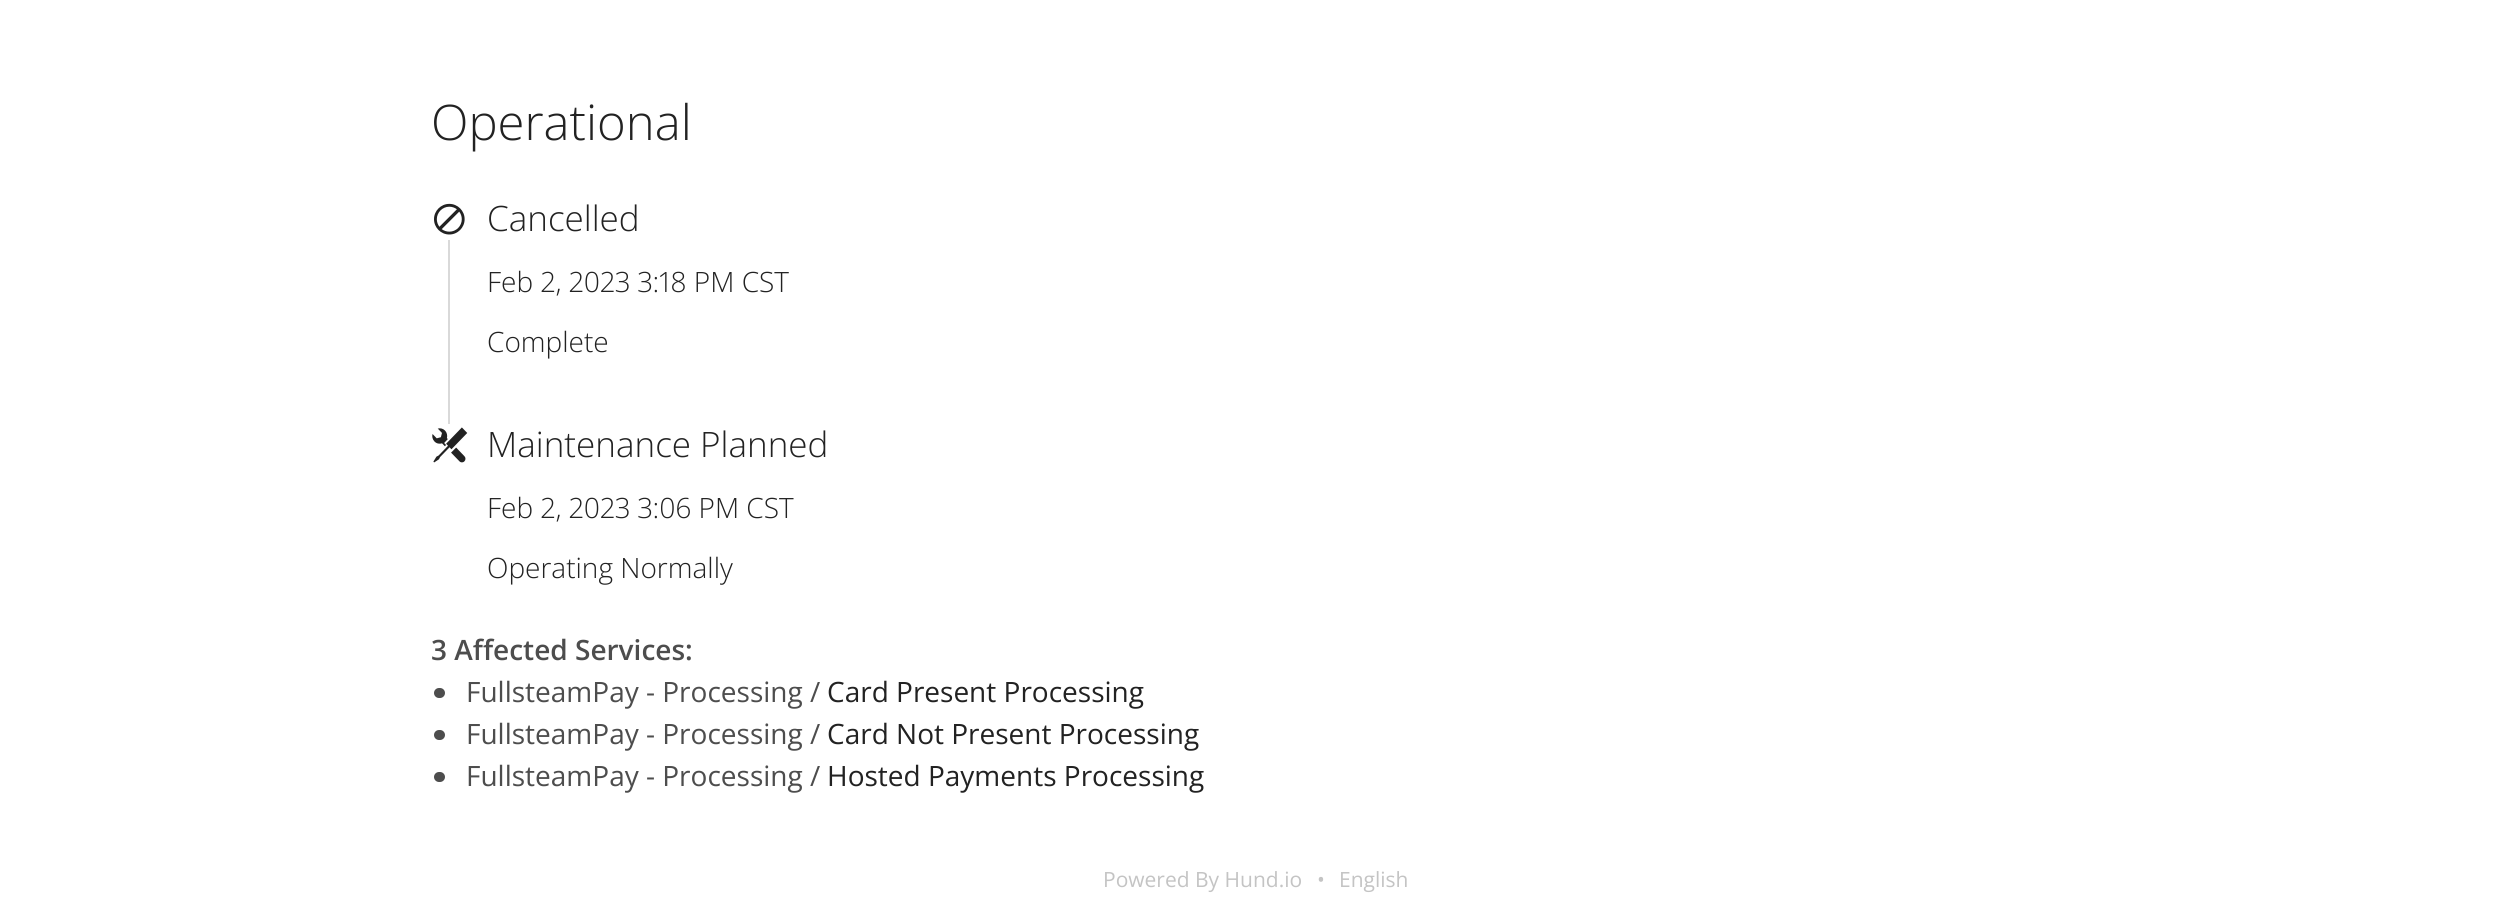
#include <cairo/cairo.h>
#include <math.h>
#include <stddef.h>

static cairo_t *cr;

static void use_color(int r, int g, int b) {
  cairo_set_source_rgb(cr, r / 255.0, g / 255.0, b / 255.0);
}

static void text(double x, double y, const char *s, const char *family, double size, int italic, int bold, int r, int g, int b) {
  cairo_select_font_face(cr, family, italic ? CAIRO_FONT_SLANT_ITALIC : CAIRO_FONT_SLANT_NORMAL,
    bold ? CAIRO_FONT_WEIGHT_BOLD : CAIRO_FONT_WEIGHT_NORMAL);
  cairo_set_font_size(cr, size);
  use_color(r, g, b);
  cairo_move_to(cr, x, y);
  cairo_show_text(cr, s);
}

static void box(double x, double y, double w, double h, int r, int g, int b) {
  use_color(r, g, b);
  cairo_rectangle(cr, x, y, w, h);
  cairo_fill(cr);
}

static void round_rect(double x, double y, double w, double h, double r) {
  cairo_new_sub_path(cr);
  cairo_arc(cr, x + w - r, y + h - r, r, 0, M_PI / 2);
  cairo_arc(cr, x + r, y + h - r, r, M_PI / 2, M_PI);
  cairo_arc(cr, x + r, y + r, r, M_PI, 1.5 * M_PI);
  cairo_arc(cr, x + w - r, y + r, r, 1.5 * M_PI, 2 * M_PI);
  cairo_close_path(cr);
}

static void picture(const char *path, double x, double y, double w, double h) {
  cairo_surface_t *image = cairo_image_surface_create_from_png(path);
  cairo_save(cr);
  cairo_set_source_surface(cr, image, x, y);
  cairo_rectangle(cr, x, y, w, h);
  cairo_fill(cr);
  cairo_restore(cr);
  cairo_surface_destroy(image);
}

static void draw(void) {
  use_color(255, 255, 255);
  cairo_paint(cr);
  box(448, 240, 2, 184, 217, 217, 217);
  picture("img_01.png", 434, 203, 31, 32);
  picture("img_02.png", 432, 427, 36, 36);
  use_color(77, 77, 77);
  round_rect(434, 688, 11, 10, 5);
  cairo_fill(cr);
  round_rect(434, 730, 11, 10, 5);
  cairo_fill(cr);
  round_rect(434, 772, 11, 10, 5);
  cairo_fill(cr);
  text(431, 140, "Operational", "Open Sans Light", 49, 0, 0, 34, 34, 34);
  text(487, 231, "Cancelled", "Open Sans Light", 35, 0, 0, 34, 34, 34);
  text(487, 292, "Feb 2, 2023 3:18 PM CST", "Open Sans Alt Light", 28, 0, 0, 34, 34, 34);
  text(487, 352, "Complete", "Open Sans Light", 28, 0, 0, 34, 34, 34);
  text(487, 457, "Maintenance Planned", "Open Sans Light", 35, 0, 0, 34, 34, 34);
  text(487, 518, "Feb 2, 2023 3:06 PM CST", "Open Sans Alt Light", 28, 0, 0, 34, 34, 34);
  text(487, 578, "Operating Normally", "Open Sans Light", 28, 0, 0, 34, 34, 34);
  text(431, 660, "3 Affected Services:", "Open Sans SemiBold", 28, 0, 0, 77, 77, 77);
  text(466, 702, "FullsteamPay - Processing /", "Open Sans", 28, 0, 0, 77, 77, 77);
  text(827, 702, "Card Present Processing", "Open Sans", 28, 0, 0, 34, 34, 34);
  text(466, 744, "FullsteamPay - Processing /", "Open Sans", 28, 0, 0, 77, 77, 77);
  text(827, 744, "Card Not Present Processing", "Open Sans", 28, 0, 0, 34, 34, 34);
  text(466, 786, "FullsteamPay - Processing /", "Open Sans", 28, 0, 0, 77, 77, 77);
  text(827, 786, "Hosted Payments Processing", "Open Sans", 28, 0, 0, 34, 34, 34);
  text(1103, 887, "Powered By Hund.io", "Open Sans", 21, 0, 0, 196, 196, 196);
  text(1317, 887, "•", "Open Sans", 21, 0, 0, 196, 196, 196);
  text(1339, 887, "English", "Open Sans", 21, 0, 0, 196, 196, 196);
}

int main(void) {
  cairo_surface_t *surface = cairo_image_surface_create(CAIRO_FORMAT_RGB24, 2499, 919);
  cr = cairo_create(surface);
  cairo_font_options_t *options = cairo_font_options_create();
  cairo_font_options_set_hint_metrics(options, CAIRO_HINT_METRICS_OFF);
  cairo_font_options_set_hint_style(options, CAIRO_HINT_STYLE_NONE);
  cairo_set_font_options(cr, options);
  cairo_set_miter_limit(cr, 4);
  draw();
  cairo_surface_write_to_png(surface, "out.png");
  cairo_font_options_destroy(options);
  cairo_destroy(cr);
  cairo_surface_destroy(surface);
  return 0;
}
